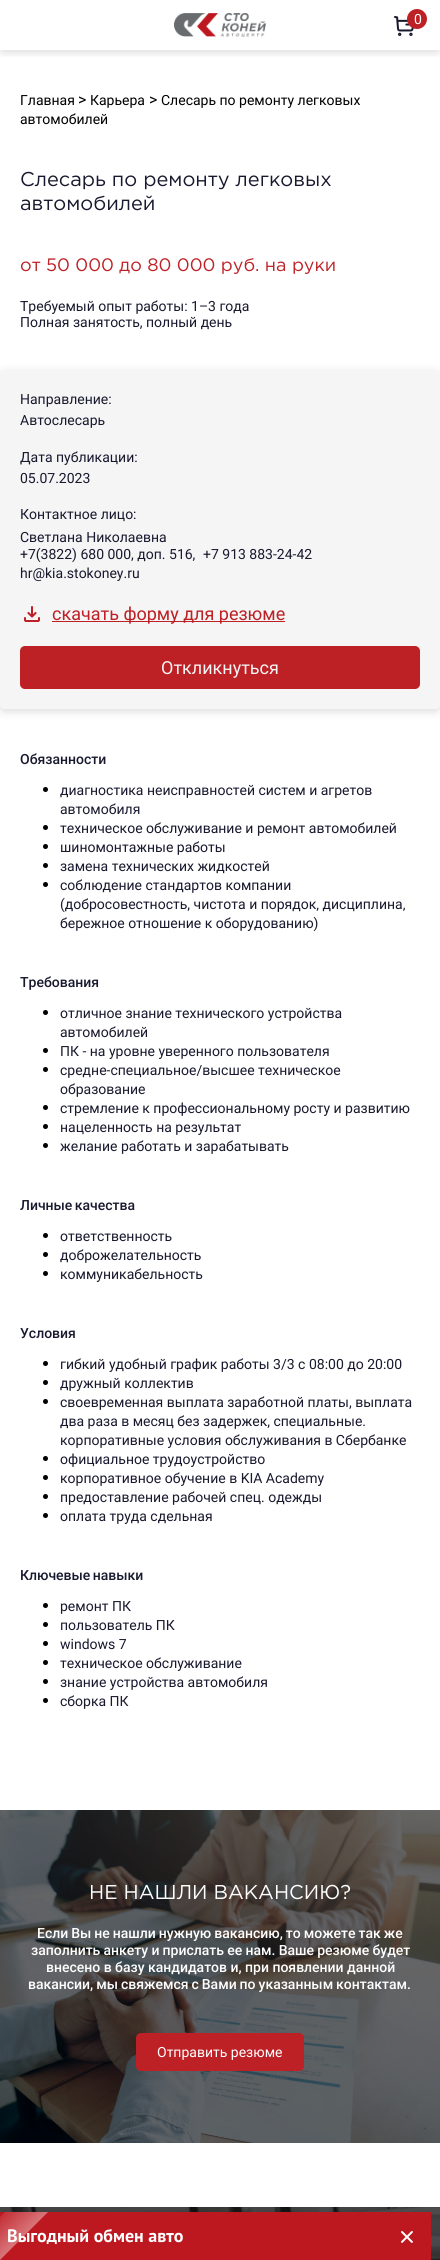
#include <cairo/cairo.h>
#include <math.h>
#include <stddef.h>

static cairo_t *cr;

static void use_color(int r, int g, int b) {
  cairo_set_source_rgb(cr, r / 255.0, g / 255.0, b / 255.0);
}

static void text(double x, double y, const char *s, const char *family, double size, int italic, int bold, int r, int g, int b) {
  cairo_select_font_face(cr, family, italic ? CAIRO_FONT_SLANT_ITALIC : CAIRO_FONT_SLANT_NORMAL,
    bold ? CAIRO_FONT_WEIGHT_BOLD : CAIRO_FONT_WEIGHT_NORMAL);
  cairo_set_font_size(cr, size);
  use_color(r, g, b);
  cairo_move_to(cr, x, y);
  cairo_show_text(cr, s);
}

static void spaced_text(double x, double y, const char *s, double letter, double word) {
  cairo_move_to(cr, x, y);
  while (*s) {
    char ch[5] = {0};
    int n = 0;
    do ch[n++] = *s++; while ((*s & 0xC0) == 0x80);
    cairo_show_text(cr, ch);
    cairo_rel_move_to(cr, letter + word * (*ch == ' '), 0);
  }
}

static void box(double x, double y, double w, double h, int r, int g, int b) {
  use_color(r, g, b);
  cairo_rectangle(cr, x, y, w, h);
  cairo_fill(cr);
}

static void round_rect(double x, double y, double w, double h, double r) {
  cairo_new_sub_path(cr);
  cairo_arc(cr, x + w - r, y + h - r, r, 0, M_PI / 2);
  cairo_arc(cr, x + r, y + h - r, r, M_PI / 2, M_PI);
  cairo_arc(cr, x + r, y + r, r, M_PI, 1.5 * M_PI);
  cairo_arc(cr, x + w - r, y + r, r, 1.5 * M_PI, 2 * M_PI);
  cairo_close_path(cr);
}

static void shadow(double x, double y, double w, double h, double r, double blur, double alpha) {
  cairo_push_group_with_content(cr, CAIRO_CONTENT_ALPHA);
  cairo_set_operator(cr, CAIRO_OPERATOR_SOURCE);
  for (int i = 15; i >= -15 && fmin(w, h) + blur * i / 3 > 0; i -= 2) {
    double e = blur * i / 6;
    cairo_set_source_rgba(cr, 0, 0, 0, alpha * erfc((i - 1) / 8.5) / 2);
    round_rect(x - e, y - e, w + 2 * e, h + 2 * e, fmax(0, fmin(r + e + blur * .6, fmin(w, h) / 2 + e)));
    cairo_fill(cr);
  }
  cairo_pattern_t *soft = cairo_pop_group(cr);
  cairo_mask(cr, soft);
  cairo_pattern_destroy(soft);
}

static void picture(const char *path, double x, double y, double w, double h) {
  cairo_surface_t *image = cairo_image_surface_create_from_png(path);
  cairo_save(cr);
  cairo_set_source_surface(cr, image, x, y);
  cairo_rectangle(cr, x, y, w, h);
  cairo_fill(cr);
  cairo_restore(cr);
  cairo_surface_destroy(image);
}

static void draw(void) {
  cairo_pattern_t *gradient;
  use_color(255, 255, 255);
  cairo_paint(cr);
  cairo_save(cr);
  cairo_rectangle(cr, 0, 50, 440, 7);
  cairo_clip(cr);
  use_color(0, 0, 0);
  shadow(3, 5, 434, 44, 0, 6, 0.25);
  cairo_restore(cr);
  picture("img_01.png", 174, 13, 92, 24);
  picture("img_02.png", 394, 16, 20, 20);
  use_color(189, 32, 37);
  cairo_arc(cr, 417, 19, 10, 0, 2 * M_PI);
  cairo_fill(cr);
  use_color(0, 0, 0);
  shadow(3, 376, 434, 332, 1, 6, 0.25);
  use_color(245, 245, 245);
  round_rect(0, 371, 440, 338, 4);
  cairo_fill(cr);
  picture("img_03.png", 24, 606, 16, 16);
  box(52, 621, 233, 1, 189, 32, 37);
  round_rect(20, 646, 400, 43, 5);
  cairo_fill(cr);
  use_color(0, 0, 0);
  cairo_arc(cr, 45.5, 789.5, 2.5, 0, 2 * M_PI);
  cairo_fill(cr);
  cairo_arc(cr, 45.5, 827.5, 2.5, 0, 2 * M_PI);
  cairo_fill(cr);
  cairo_arc(cr, 45.5, 846.5, 2.5, 0, 2 * M_PI);
  cairo_fill(cr);
  cairo_arc(cr, 45.5, 865.5, 2.5, 0, 2 * M_PI);
  cairo_fill(cr);
  cairo_arc(cr, 45.5, 884.5, 2.5, 0, 2 * M_PI);
  cairo_fill(cr);
  cairo_arc(cr, 45.5, 1012.5, 2.5, 0, 2 * M_PI);
  cairo_fill(cr);
  cairo_arc(cr, 45.5, 1050.5, 2.5, 0, 2 * M_PI);
  cairo_fill(cr);
  cairo_arc(cr, 45.5, 1069.5, 2.5, 0, 2 * M_PI);
  cairo_fill(cr);
  cairo_arc(cr, 45.5, 1107.5, 2.5, 0, 2 * M_PI);
  cairo_fill(cr);
  cairo_arc(cr, 45.5, 1126.5, 2.5, 0, 2 * M_PI);
  cairo_fill(cr);
  cairo_arc(cr, 45.5, 1145.5, 2.5, 0, 2 * M_PI);
  cairo_fill(cr);
  cairo_arc(cr, 45.5, 1235.5, 2.5, 0, 2 * M_PI);
  cairo_fill(cr);
  cairo_arc(cr, 45.5, 1254.5, 2.5, 0, 2 * M_PI);
  cairo_fill(cr);
  cairo_arc(cr, 45.5, 1273.5, 2.5, 0, 2 * M_PI);
  cairo_fill(cr);
  cairo_arc(cr, 45.5, 1363.5, 2.5, 0, 2 * M_PI);
  cairo_fill(cr);
  cairo_arc(cr, 45.5, 1382.5, 2.5, 0, 2 * M_PI);
  cairo_fill(cr);
  cairo_arc(cr, 45.5, 1401.5, 2.5, 0, 2 * M_PI);
  cairo_fill(cr);
  cairo_arc(cr, 45.5, 1458.5, 2.5, 0, 2 * M_PI);
  cairo_fill(cr);
  cairo_arc(cr, 45.5, 1477.5, 2.5, 0, 2 * M_PI);
  cairo_fill(cr);
  cairo_arc(cr, 45.5, 1496.5, 2.5, 0, 2 * M_PI);
  cairo_fill(cr);
  cairo_arc(cr, 45.5, 1515.5, 2.5, 0, 2 * M_PI);
  cairo_fill(cr);
  cairo_arc(cr, 45.5, 1605.5, 2.5, 0, 2 * M_PI);
  cairo_fill(cr);
  cairo_arc(cr, 45.5, 1624.5, 2.5, 0, 2 * M_PI);
  cairo_fill(cr);
  cairo_arc(cr, 45.5, 1643.5, 2.5, 0, 2 * M_PI);
  cairo_fill(cr);
  cairo_arc(cr, 45.5, 1662.5, 2.5, 0, 2 * M_PI);
  cairo_fill(cr);
  cairo_arc(cr, 45.5, 1681.5, 2.5, 0, 2 * M_PI);
  cairo_fill(cr);
  cairo_arc(cr, 45.5, 1700.5, 2.5, 0, 2 * M_PI);
  cairo_fill(cr);
  picture("img_04.png", 0, 1810, 440, 333);
  use_color(189, 32, 37);
  round_rect(136, 2033, 168, 38, 5);
  cairo_fill(cr);
  picture("img_05.png", 0, 2207, 440, 53);
  box(0, 2212, 431, 48, 189, 24, 31);
  picture("img_06.png", 401, 2231, 12, 12);
  text(414, 24, "0", "Roboto", 14, 0, 0, 255, 255, 255);
  text(20, 105, "Главная", "Roboto", 14, 0, 0, 0, 0, 0);
  text(78, 105, ">", "Roboto", 16, 0, 0, 0, 0, 0);
  text(90, 105, "Карьера", "Roboto", 14, 0, 0, 0, 0, 0);
  text(149, 105, ">", "Roboto", 16, 0, 0, 0, 0, 0);
  text(161, 105, "Слесарь по ремонту легковых", "Roboto", 14, 0, 0, 0, 0, 0);
  text(20, 124, "автомобилей", "Roboto", 14, 0, 0, 0, 0, 0);
  text(20, 186, "Слесарь по ремонту легковых", "Gotham", 20, 0, 0, 24, 24, 46);
  text(20, 210, "автомобилей", "Gotham", 20, 0, 0, 24, 24, 46);
  text(20, 271, "от 50 000 до 80 000 руб. на руки", "Gotham", 18, 0, 0, 189, 32, 37);
  text(20, 311, "Требуемый опыт работы: 1–3 года", "Roboto", 14, 0, 0, 24, 24, 46);
  text(20, 327, "Полная занятость, полный день", "Roboto", 14, 0, 0, 24, 24, 46);
  text(20, 404, "Направление:", "Roboto", 14, 0, 0, 24, 24, 46);
  text(20, 425, "Автослесарь", "Roboto", 14, 0, 0, 24, 24, 46);
  text(20, 462, "Дата публикации:", "Roboto", 14, 0, 0, 24, 24, 46);
  text(20, 483, "05.07.2023", "Roboto", 14, 0, 0, 24, 24, 46);
  text(20, 519, "Контактное лицо:", "Roboto", 14, 0, 0, 24, 24, 46);
  text(20, 542, "Светлана Николаевна", "Roboto", 14, 0, 0, 24, 24, 46);
  text(20, 559, "+7(3822) 680 000, доп. 516,", "Roboto", 14, 0, 0, 24, 24, 46);
  text(203, 559, "+7 913 883-24-42", "Roboto", 14, 0, 0, 24, 24, 46);
  text(20, 578, "hr@kia.stokoney.ru", "Roboto", 14, 0, 0, 24, 24, 46);
  text(52, 620, "скачать форму для резюме", "Roboto", 18, 0, 0, 189, 32, 37);
  text(161, 674, "Откликнуться", "Roboto", 18, 0, 0, 245, 245, 245);
  text(20, 764, "Обязанности", "Roboto Medium", 14, 0, 0, 24, 24, 46);
  text(60, 795, "диагностика неисправностей систем и агретов", "Roboto", 14, 0, 0, 24, 24, 46);
  text(60, 814, "автомобиля", "Roboto", 14, 0, 0, 24, 24, 46);
  text(60, 833, "техническое обслуживание и ремонт автомобилей", "Roboto", 14, 0, 0, 24, 24, 46);
  text(60, 852, "шиномонтажные работы", "Roboto", 14, 0, 0, 24, 24, 46);
  text(60, 871, "замена технических жидкостей", "Roboto", 14, 0, 0, 24, 24, 46);
  text(60, 890, "соблюдение стандартов компании", "Roboto", 14, 0, 0, 24, 24, 46);
  text(60, 909, "(добросовестность, чистота и порядок‚ дисциплина‚", "Roboto", 14, 0, 0, 24, 24, 46);
  text(60, 928, "бережное отношение к оборудованию)", "Roboto", 14, 0, 0, 24, 24, 46);
  text(20, 987, "Требования", "Roboto Medium", 14, 0, 0, 24, 24, 46);
  text(60, 1018, "отличное знание технического устройства", "Roboto", 14, 0, 0, 24, 24, 46);
  text(60, 1037, "автомобилей", "Roboto", 14, 0, 0, 24, 24, 46);
  text(60, 1056, "ПК - на уровне уверенного пользователя", "Roboto", 14, 0, 0, 24, 24, 46);
  text(60, 1075, "средне-специальное/высшее техническое", "Roboto", 14, 0, 0, 24, 24, 46);
  text(60, 1094, "образование", "Roboto", 14, 0, 0, 24, 24, 46);
  text(60, 1113, "стремление к профессиональному росту и развитию", "Roboto", 14, 0, 0, 24, 24, 46);
  text(60, 1132, "нацеленность на результат", "Roboto", 14, 0, 0, 24, 24, 46);
  text(60, 1151, "желание работать и зарабатывать", "Roboto", 14, 0, 0, 24, 24, 46);
  cairo_select_font_face(cr, "Roboto Medium", CAIRO_FONT_SLANT_NORMAL, CAIRO_FONT_WEIGHT_NORMAL);
  spaced_text(20, 1210, "Личные качества", 0, -1);
  text(60, 1241, "ответственность", "Roboto", 14, 0, 0, 24, 24, 46);
  text(60, 1260, "доброжелательность", "Roboto", 14, 0, 0, 24, 24, 46);
  text(60, 1279, "коммуникабельность", "Roboto", 14, 0, 0, 24, 24, 46);
  text(20, 1338, "Условия", "Roboto Medium", 14, 0, 0, 24, 24, 46);
  text(60, 1369, "гибкий удобный график работы 3/3 с 08:00 до 20:00", "Roboto", 14, 0, 0, 24, 24, 46);
  text(60, 1388, "дружный коллектив", "Roboto", 14, 0, 0, 24, 24, 46);
  text(60, 1407, "своевременная выплата заработной платы, выплата", "Roboto", 14, 0, 0, 24, 24, 46);
  text(60, 1426, "два раза в месяц без задержек, специальные.", "Roboto", 14, 0, 0, 24, 24, 46);
  text(60, 1445, "корпоративные условия обслуживания в Сбербанке", "Roboto", 14, 0, 0, 24, 24, 46);
  text(60, 1464, "официальное трудоустройство", "Roboto", 14, 0, 0, 24, 24, 46);
  text(60, 1483, "корпоративное обучение в KIA Academy", "Roboto", 14, 0, 0, 24, 24, 46);
  text(60, 1502, "предоставление рабочей спец. одежды", "Roboto", 14, 0, 0, 24, 24, 46);
  text(60, 1521, "оплата труда сдельная", "Roboto", 14, 0, 0, 24, 24, 46);
  cairo_select_font_face(cr, "Roboto Medium", CAIRO_FONT_SLANT_NORMAL, CAIRO_FONT_WEIGHT_NORMAL);
  spaced_text(20, 1580, "Ключевые навыки", 0, -1);
  text(60, 1611, "ремонт ПК", "Roboto", 14, 0, 0, 24, 24, 46);
  text(60, 1630, "пользователь ПК", "Roboto", 14, 0, 0, 24, 24, 46);
  text(60, 1649, "windows 7", "Roboto", 14, 0, 0, 24, 24, 46);
  text(60, 1668, "техническое обслуживание", "Roboto", 14, 0, 0, 24, 24, 46);
  text(60, 1687, "знание устройства автомобиля", "Roboto", 14, 0, 0, 24, 24, 46);
  text(60, 1706, "сборка ПК", "Roboto", 14, 0, 0, 24, 24, 46);
  text(89, 1899, "НЕ НАШЛИ ВАКАНСИЮ?", "Gotham", 20, 0, 0, 255, 255, 255);
  cairo_select_font_face(cr, "Roboto Medium", CAIRO_FONT_SLANT_NORMAL, CAIRO_FONT_WEIGHT_NORMAL);
  cairo_set_font_size(cr, 14);
  spaced_text(37, 1938, "Если Вы не нашли нужную вакансию, то можете так же", 0, -0.5);
  spaced_text(31, 1955, "заполнить анкету и прислать ее нам. Ваше резюме будет", 0, -0.25);
  text(46, 1972, "внесено в базу кандидатов и, при появлении данной", "Roboto Medium", 14, 0, 0, 255, 255, 255);
  spaced_text(28, 1989, "вакансии, мы свяжемся с Вами по указанным контактам.", 0, -0.5);
  text(157, 2057, "Отправить резюме", "Roboto", 14, 0, 0, 255, 255, 255);
  text(7, 2242, "Выгодный обмен авто", "PT Sans", 18, 0, 1, 255, 255, 255);
  cairo_save(cr);
  cairo_rectangle(cr, 0, 2212, 431, 48);
  cairo_clip(cr);
  gradient = cairo_pattern_create_linear(16, 2201, 37, 2223);
  cairo_pattern_add_color_stop_rgba(gradient, 0, 1, 1, 1, 0.1);
  cairo_pattern_add_color_stop_rgba(gradient, 1, 1, 1, 1, 0.4);
  cairo_set_source(cr, gradient);
  cairo_pattern_destroy(gradient);
  cairo_new_path(cr);
  cairo_move_to(cr, 122, 2095);
  cairo_line_to(cr, 143, 2117);
  cairo_line_to(cr, -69, 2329);
  cairo_line_to(cr, -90, 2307);
  cairo_close_path(cr);
  cairo_fill(cr);
  cairo_restore(cr);
}

int main(void) {
  cairo_surface_t *surface = cairo_image_surface_create(CAIRO_FORMAT_RGB24, 440, 2260);
  cr = cairo_create(surface);
  cairo_font_options_t *options = cairo_font_options_create();
  cairo_font_options_set_hint_metrics(options, CAIRO_HINT_METRICS_OFF);
  cairo_font_options_set_hint_style(options, CAIRO_HINT_STYLE_NONE);
  cairo_set_font_options(cr, options);
  cairo_set_miter_limit(cr, 4);
  draw();
  cairo_surface_write_to_png(surface, "out.png");
  cairo_font_options_destroy(options);
  cairo_destroy(cr);
  cairo_surface_destroy(surface);
  return 0;
}
